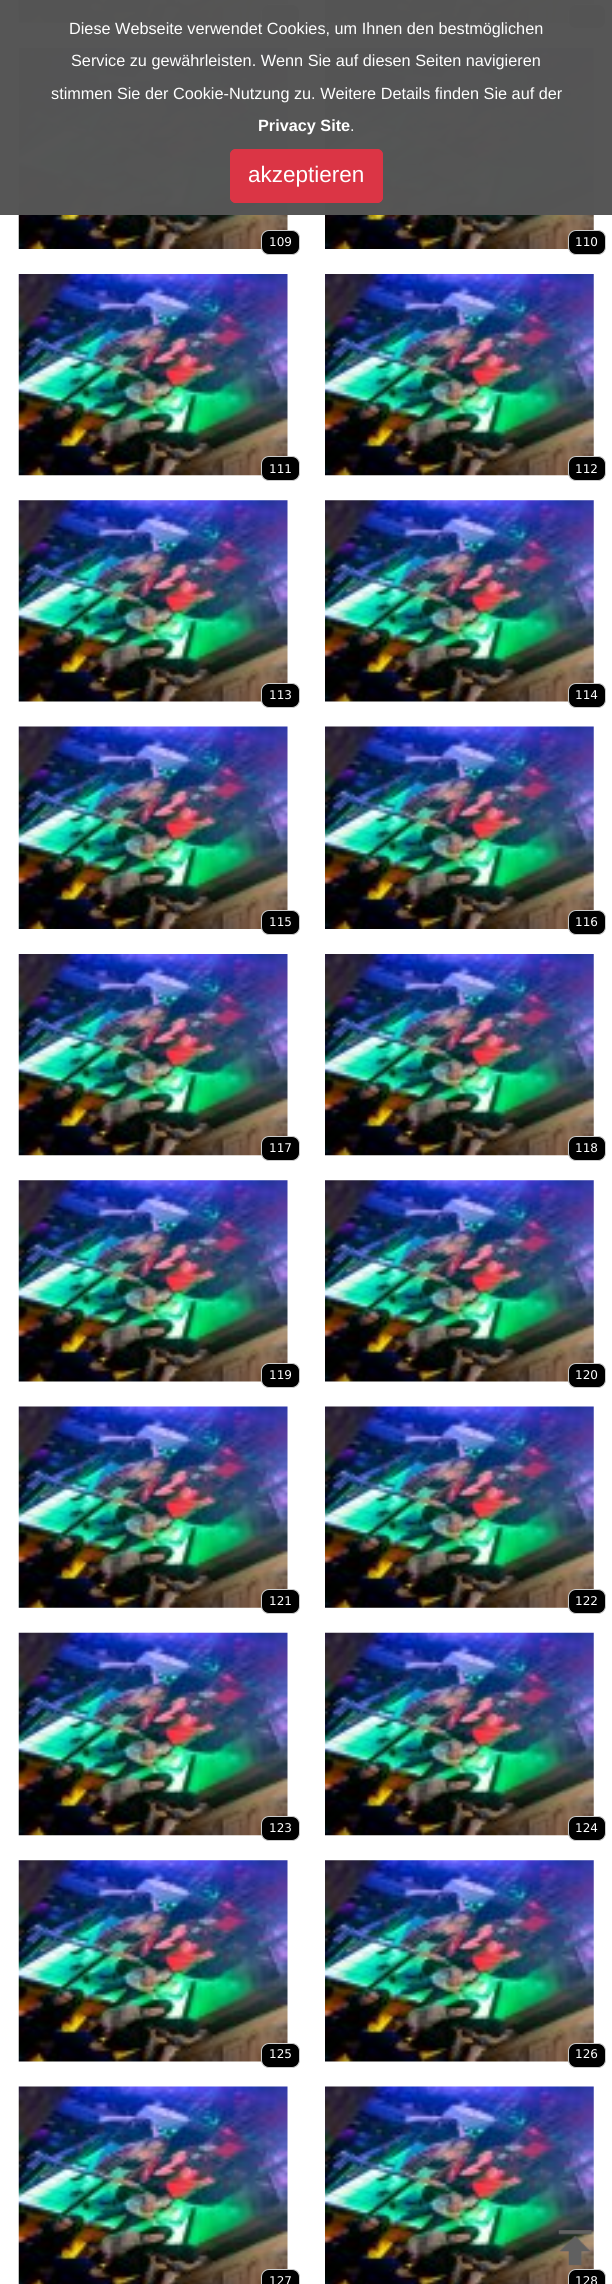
#include <cairo/cairo.h>
#include <math.h>
#include <stddef.h>

static cairo_t *cr;

static void use_color(int r, int g, int b) {
  cairo_set_source_rgb(cr, r / 255.0, g / 255.0, b / 255.0);
}

static void text(double x, double y, const char *s, const char *family, double size, int italic, int bold, int r, int g, int b) {
  cairo_select_font_face(cr, family, italic ? CAIRO_FONT_SLANT_ITALIC : CAIRO_FONT_SLANT_NORMAL,
    bold ? CAIRO_FONT_WEIGHT_BOLD : CAIRO_FONT_WEIGHT_NORMAL);
  cairo_set_font_size(cr, size);
  use_color(r, g, b);
  cairo_move_to(cr, x, y);
  cairo_show_text(cr, s);
}

static void round_rect(double x, double y, double w, double h, double r) {
  cairo_new_sub_path(cr);
  cairo_arc(cr, x + w - r, y + h - r, r, 0, M_PI / 2);
  cairo_arc(cr, x + r, y + h - r, r, M_PI / 2, M_PI);
  cairo_arc(cr, x + r, y + r, r, M_PI, 1.5 * M_PI);
  cairo_arc(cr, x + w - r, y + r, r, 1.5 * M_PI, 2 * M_PI);
  cairo_close_path(cr);
}

static void picture(const char *path, double x, double y, double w, double h) {
  cairo_surface_t *image = cairo_image_surface_create_from_png(path);
  cairo_save(cr);
  cairo_set_source_surface(cr, image, x, y);
  cairo_rectangle(cr, x, y, w, h);
  cairo_fill(cr);
  cairo_restore(cr);
  cairo_surface_destroy(image);
}

static void draw(void) {
  use_color(255, 255, 255);
  cairo_paint(cr);
  picture("img_01.png", 18, 0, 270, 23);
  use_color(0, 0, 0);
  round_rect(261.5, 4.5, 38, 24, 7.5);
  cairo_fill_preserve(cr);
  use_color(204, 204, 204);
  cairo_set_line_width(cr, 1);
  cairo_stroke(cr);
  picture("img_02.png", 325, 0, 269, 23);
  use_color(0, 0, 0);
  round_rect(568.5, 4.5, 37, 24, 7.5);
  cairo_fill_preserve(cr);
  use_color(204, 204, 204);
  cairo_stroke(cr);
  picture("img_03.png", 18, 47, 270, 202);
  picture("img_04.png", 325, 47, 269, 202);
  cairo_set_source_rgba(cr, 0.333, 0.333, 0.333, 0.99);
  cairo_rectangle(cr, 0, 0, 612, 215);
  cairo_fill(cr);
  use_color(219, 53, 69);
  round_rect(230, 149, 153, 54, 6);
  cairo_fill(cr);
  round_rect(230.5, 149.5, 152, 53, 5.5);
  cairo_set_source_rgba(cr, 0.863, 0.208, 0.271, 0.99);
  cairo_stroke(cr);
  use_color(0, 0, 0);
  round_rect(261.5, 230.5, 38, 24, 7.5);
  cairo_fill_preserve(cr);
  use_color(204, 204, 204);
  cairo_stroke(cr);
  use_color(0, 0, 0);
  round_rect(568.5, 230.5, 37, 24, 7.5);
  cairo_fill_preserve(cr);
  use_color(204, 204, 204);
  cairo_stroke(cr);
  picture("img_05.png", 18, 274, 270, 202);
  use_color(0, 0, 0);
  round_rect(261.5, 456.5, 38, 24, 7.5);
  cairo_fill_preserve(cr);
  use_color(204, 204, 204);
  cairo_stroke(cr);
  picture("img_06.png", 325, 274, 269, 202);
  use_color(0, 0, 0);
  round_rect(568.5, 456.5, 37, 24, 7.5);
  cairo_fill_preserve(cr);
  use_color(204, 204, 204);
  cairo_stroke(cr);
  picture("img_07.png", 18, 500, 270, 202);
  use_color(0, 0, 0);
  round_rect(261.5, 683.5, 38, 24, 7.5);
  cairo_fill_preserve(cr);
  use_color(204, 204, 204);
  cairo_stroke(cr);
  picture("img_08.png", 325, 500, 269, 202);
  use_color(0, 0, 0);
  round_rect(568.5, 683.5, 37, 24, 7.5);
  cairo_fill_preserve(cr);
  use_color(204, 204, 204);
  cairo_stroke(cr);
  picture("img_09.png", 18, 726, 270, 203);
  use_color(0, 0, 0);
  round_rect(261.5, 910.5, 38, 24, 7.5);
  cairo_fill_preserve(cr);
  use_color(204, 204, 204);
  cairo_stroke(cr);
  picture("img_10.png", 325, 726, 269, 203);
  use_color(0, 0, 0);
  round_rect(568.5, 910.5, 37, 24, 7.5);
  cairo_fill_preserve(cr);
  use_color(204, 204, 204);
  cairo_stroke(cr);
  picture("img_11.png", 18, 954, 270, 202);
  use_color(0, 0, 0);
  round_rect(261.5, 1136.5, 38, 24, 7.5);
  cairo_fill_preserve(cr);
  use_color(204, 204, 204);
  cairo_stroke(cr);
  picture("img_12.png", 325, 954, 269, 202);
  use_color(0, 0, 0);
  round_rect(568.5, 1136.5, 37, 24, 7.5);
  cairo_fill_preserve(cr);
  use_color(204, 204, 204);
  cairo_stroke(cr);
  picture("img_13.png", 18, 1180, 270, 202);
  use_color(0, 0, 0);
  round_rect(261.5, 1363.5, 38, 24, 7.5);
  cairo_fill_preserve(cr);
  use_color(204, 204, 204);
  cairo_stroke(cr);
  picture("img_14.png", 325, 1180, 269, 202);
  use_color(0, 0, 0);
  round_rect(568.5, 1363.5, 37, 24, 7.5);
  cairo_fill_preserve(cr);
  use_color(204, 204, 204);
  cairo_stroke(cr);
  picture("img_15.png", 18, 1406, 270, 202);
  use_color(0, 0, 0);
  round_rect(261.5, 1589.5, 38, 24, 7.5);
  cairo_fill_preserve(cr);
  use_color(204, 204, 204);
  cairo_stroke(cr);
  picture("img_16.png", 325, 1406, 269, 202);
  use_color(0, 0, 0);
  round_rect(568.5, 1589.5, 37, 24, 7.5);
  cairo_fill_preserve(cr);
  use_color(204, 204, 204);
  cairo_stroke(cr);
  picture("img_17.png", 18, 1632, 270, 204);
  use_color(0, 0, 0);
  round_rect(261.5, 1816.5, 38, 24, 7.5);
  cairo_fill_preserve(cr);
  use_color(204, 204, 204);
  cairo_stroke(cr);
  picture("img_18.png", 325, 1632, 269, 204);
  use_color(0, 0, 0);
  round_rect(568.5, 1816.5, 37, 24, 7.5);
  cairo_fill_preserve(cr);
  use_color(204, 204, 204);
  cairo_stroke(cr);
  picture("img_07.png", 18, 1860, 270, 202);
  use_color(0, 0, 0);
  round_rect(261.5, 2043.5, 38, 24, 7.5);
  cairo_fill_preserve(cr);
  use_color(204, 204, 204);
  cairo_stroke(cr);
  picture("img_08.png", 325, 1860, 269, 202);
  use_color(0, 0, 0);
  round_rect(568.5, 2043.5, 37, 24, 7.5);
  cairo_fill_preserve(cr);
  use_color(204, 204, 204);
  cairo_stroke(cr);
  picture("img_19.png", 18, 2086, 270, 198);
  use_color(0, 0, 0);
  round_rect(261.5, 2269.5, 38, 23, 7.5);
  cairo_fill_preserve(cr);
  use_color(204, 204, 204);
  cairo_stroke(cr);
  picture("img_20.png", 325, 2086, 269, 198);
  use_color(0, 0, 0);
  round_rect(568.5, 2269.5, 37, 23, 7.5);
  cairo_fill_preserve(cr);
  use_color(204, 204, 204);
  cairo_stroke(cr);
  picture("img_21.png", 558, 2230, 35, 36);
  text(69, 34, "Diese Webseite verwendet Cookies, um Ihnen den bestmöglichen", "Liberation Sans", 16.25, 0, 0, 255, 255, 255);
  text(71, 66, "Service zu gewährleisten. Wenn Sie auf diesen Seiten navigieren", "Liberation Sans", 16.25, 0, 0, 255, 255, 255);
  text(51, 99, "stimmen Sie der Cookie-Nutzung zu. Weitere Details finden Sie auf der", "Liberation Sans", 16.25, 0, 0, 255, 255, 255);
  text(258, 131, "Privacy Site", "Liberation Sans", 16.25, 0, 1, 255, 255, 255);
  text(350, 131, ".", "Liberation Sans", 16.25, 0, 0, 255, 255, 255);
  text(248, 182, "akzeptieren", "Liberation Sans", 22.5, 0, 0, 255, 255, 255);
  text(269, 246, "109", "DejaVu Sans", 12, 0, 0, 255, 255, 255);
  text(575, 246, "110", "DejaVu Sans", 12, 0, 0, 255, 255, 255);
  text(269, 473, "111", "DejaVu Sans", 12, 0, 0, 255, 255, 255);
  text(575, 473, "112", "DejaVu Sans", 12, 0, 0, 255, 255, 255);
  text(269, 699, "113", "DejaVu Sans", 12, 0, 0, 255, 255, 255);
  text(575, 699, "114", "DejaVu Sans", 12, 0, 0, 255, 255, 255);
  text(269, 926, "115", "DejaVu Sans", 12, 0, 0, 255, 255, 255);
  text(575, 926, "116", "DejaVu Sans", 12, 0, 0, 255, 255, 255);
  text(269, 1152, "117", "DejaVu Sans", 12, 0, 0, 255, 255, 255);
  text(575, 1152, "118", "DejaVu Sans", 12, 0, 0, 255, 255, 255);
  text(269, 1379, "119", "DejaVu Sans", 12, 0, 0, 255, 255, 255);
  text(575, 1379, "120", "DejaVu Sans", 12, 0, 0, 255, 255, 255);
  text(269, 1605, "121", "DejaVu Sans", 12, 0, 0, 255, 255, 255);
  text(575, 1605, "122", "DejaVu Sans", 12, 0, 0, 255, 255, 255);
  text(269, 1832, "123", "DejaVu Sans", 12, 0, 0, 255, 255, 255);
  text(575, 1832, "124", "DejaVu Sans", 12, 0, 0, 255, 255, 255);
  text(269, 2058, "125", "DejaVu Sans", 12, 0, 0, 255, 255, 255);
  text(575, 2058, "126", "DejaVu Sans", 12, 0, 0, 255, 255, 255);
  text(269, 2285, "127", "DejaVu Sans", 12, 0, 0, 255, 255, 255);
  text(575, 2285, "128", "DejaVu Sans", 12, 0, 0, 255, 255, 255);
}

int main(void) {
  cairo_surface_t *surface = cairo_image_surface_create(CAIRO_FORMAT_RGB24, 612, 2284);
  cr = cairo_create(surface);
  cairo_font_options_t *options = cairo_font_options_create();
  cairo_font_options_set_hint_metrics(options, CAIRO_HINT_METRICS_OFF);
  cairo_font_options_set_hint_style(options, CAIRO_HINT_STYLE_NONE);
  cairo_set_font_options(cr, options);
  cairo_set_miter_limit(cr, 4);
  draw();
  cairo_surface_write_to_png(surface, "out.png");
  cairo_font_options_destroy(options);
  cairo_destroy(cr);
  cairo_surface_destroy(surface);
  return 0;
}
